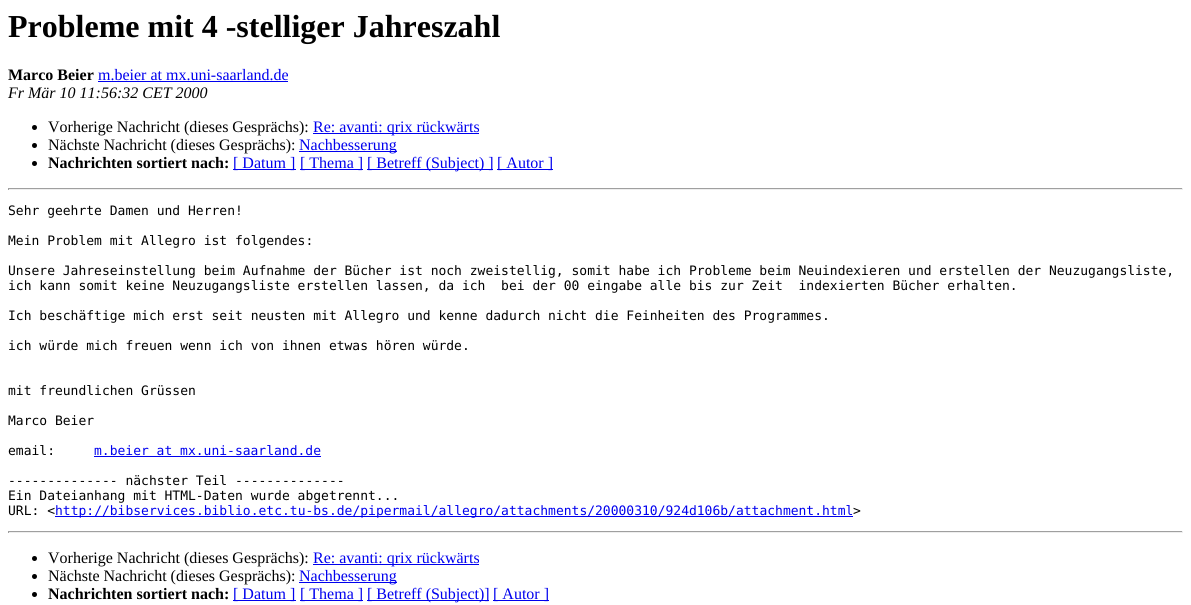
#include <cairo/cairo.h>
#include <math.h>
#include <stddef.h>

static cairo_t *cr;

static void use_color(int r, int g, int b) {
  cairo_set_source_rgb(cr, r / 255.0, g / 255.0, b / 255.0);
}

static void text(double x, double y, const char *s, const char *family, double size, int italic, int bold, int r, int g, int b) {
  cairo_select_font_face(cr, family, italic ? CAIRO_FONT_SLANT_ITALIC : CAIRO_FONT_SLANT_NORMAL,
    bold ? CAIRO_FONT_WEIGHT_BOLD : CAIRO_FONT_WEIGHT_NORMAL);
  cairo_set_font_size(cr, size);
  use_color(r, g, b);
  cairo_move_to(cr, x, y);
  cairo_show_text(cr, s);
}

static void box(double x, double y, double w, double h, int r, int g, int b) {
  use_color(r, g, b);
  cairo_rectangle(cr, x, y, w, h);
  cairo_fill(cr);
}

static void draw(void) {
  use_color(255, 255, 255);
  cairo_paint(cr);
  box(98, 81, 190, 1, 0, 0, 238);
  use_color(0, 0, 0);
  cairo_arc(cr, 34.5, 127.5, 2.5, 0, 2 * M_PI);
  cairo_fill(cr);
  box(313, 133, 166, 1, 0, 0, 238);
  use_color(0, 0, 0);
  cairo_arc(cr, 34.5, 145.5, 2.5, 0, 2 * M_PI);
  cairo_fill(cr);
  box(299, 151, 98, 1, 0, 0, 238);
  use_color(0, 0, 0);
  cairo_arc(cr, 34.5, 163.5, 2.5, 0, 2 * M_PI);
  cairo_fill(cr);
  box(233, 169, 63, 1, 0, 0, 238);
  box(300, 169, 63, 1, 0, 0, 238);
  box(367, 169, 126, 1, 0, 0, 238);
  box(497, 169, 56, 1, 0, 0, 238);
  box(8, 188, 1175, 1, 159, 159, 159);
  box(1182, 188, 1, 2, 238, 238, 238);
  box(8, 189, 1175, 1, 238, 238, 238);
  box(8, 188, 1, 2, 159, 159, 159);
  box(94, 456, 227, 1, 0, 0, 238);
  box(55, 516, 798, 1, 0, 0, 238);
  box(8, 531, 1175, 1, 159, 159, 159);
  box(1182, 531, 1, 2, 238, 238, 238);
  box(8, 532, 1175, 1, 238, 238, 238);
  box(8, 531, 1, 2, 159, 159, 159);
  use_color(0, 0, 0);
  cairo_arc(cr, 34.5, 558.5, 2.5, 0, 2 * M_PI);
  cairo_fill(cr);
  box(313, 564, 166, 1, 0, 0, 238);
  use_color(0, 0, 0);
  cairo_arc(cr, 34.5, 576.5, 2.5, 0, 2 * M_PI);
  cairo_fill(cr);
  box(299, 582, 98, 1, 0, 0, 238);
  use_color(0, 0, 0);
  cairo_arc(cr, 34.5, 594.5, 2.5, 0, 2 * M_PI);
  cairo_fill(cr);
  box(233, 600, 63, 1, 0, 0, 238);
  box(300, 600, 63, 1, 0, 0, 238);
  box(367, 600, 122, 1, 0, 0, 238);
  box(493, 600, 56, 1, 0, 0, 238);
  text(8, 37, "Probleme mit 4 -stelliger Jahreszahl", "Liberation Serif", 32, 0, 1, 0, 0, 0);
  text(8, 80, "Marco Beier", "Liberation Serif", 16, 0, 1, 0, 0, 0);
  text(98, 80, "m.beier at mx.uni-saarland.de", "Liberation Serif", 16, 0, 0, 0, 0, 238);
  text(8, 98, "Fr Mär 10 11:56:32 CET 2000", "Liberation Serif", 16, 1, 0, 0, 0, 0);
  text(48, 132, "Vorherige Nachricht (dieses Gesprächs):", "Liberation Serif", 16, 0, 0, 0, 0, 0);
  text(313, 132, "Re: avanti: qrix rückwärts", "Liberation Serif", 16, 0, 0, 0, 0, 238);
  text(48, 150, "Nächste Nachricht (dieses Gesprächs):", "Liberation Serif", 16, 0, 0, 0, 0, 0);
  text(299, 150, "Nachbesserung", "Liberation Serif", 16, 0, 0, 0, 0, 238);
  text(48, 168, "Nachrichten sortiert nach:", "Liberation Serif", 16, 0, 1, 0, 0, 0);
  text(233, 168, "[ Datum ]", "Liberation Serif", 16, 0, 0, 0, 0, 238);
  text(300, 168, "[ Thema ]", "Liberation Serif", 16, 0, 0, 0, 0, 238);
  text(367, 168, "[ Betreff (Subject) ]", "Liberation Serif", 16, 0, 0, 0, 0, 238);
  text(497, 168, "[ Autor ]", "Liberation Serif", 16, 0, 0, 0, 0, 238);
  text(8, 215, "Sehr geehrte Damen und Herren!", "DejaVu Sans Mono", 13, 0, 0, 0, 0, 0);
  text(8, 245, "Mein Problem mit Allegro ist folgendes:", "DejaVu Sans Mono", 13, 0, 0, 0, 0, 0);
  text(8, 275, "Unsere Jahreseinstellung beim Aufnahme der Bücher ist noch zweistellig, somit habe ich Probleme beim Neuindexieren und erstellen der Neuzugangsliste,", "DejaVu Sans Mono", 13, 0, 0, 0, 0, 0);
  text(8, 290, "ich kann somit keine Neuzugangsliste erstellen lassen, da ich  bei der 00 eingabe alle bis zur Zeit  indexierten Bücher erhalten.", "DejaVu Sans Mono", 13, 0, 0, 0, 0, 0);
  text(8, 320, "Ich beschäftige mich erst seit neusten mit Allegro und kenne dadurch nicht die Feinheiten des Programmes.", "DejaVu Sans Mono", 13, 0, 0, 0, 0, 0);
  text(8, 350, "ich würde mich freuen wenn ich von ihnen etwas hören würde.", "DejaVu Sans Mono", 13, 0, 0, 0, 0, 0);
  text(8, 395, "mit freundlichen Grüssen", "DejaVu Sans Mono", 13, 0, 0, 0, 0, 0);
  text(8, 425, "Marco Beier", "DejaVu Sans Mono", 13, 0, 0, 0, 0, 0);
  text(8, 455, "email:", "DejaVu Sans Mono", 13, 0, 0, 0, 0, 0);
  text(94, 455, "m.beier at mx.uni-saarland.de", "DejaVu Sans Mono", 13, 0, 0, 0, 0, 238);
  text(8, 485, "-------------- nächster Teil --------------", "DejaVu Sans Mono", 13, 0, 0, 0, 0, 0);
  text(8, 500, "Ein Dateianhang mit HTML-Daten wurde abgetrennt...", "DejaVu Sans Mono", 13, 0, 0, 0, 0, 0);
  text(8, 515, "URL: <", "DejaVu Sans Mono", 13, 0, 0, 0, 0, 0);
  text(55, 515, "http://bibservices.biblio.etc.tu-bs.de/pipermail/allegro/attachments/20000310/924d106b/attachment.html", "DejaVu Sans Mono", 13, 0, 0, 0, 0, 238);
  text(853, 515, ">", "DejaVu Sans Mono", 13, 0, 0, 0, 0, 0);
  text(48, 563, "Vorherige Nachricht (dieses Gesprächs):", "Liberation Serif", 16, 0, 0, 0, 0, 0);
  text(313, 563, "Re: avanti: qrix rückwärts", "Liberation Serif", 16, 0, 0, 0, 0, 238);
  text(48, 581, "Nächste Nachricht (dieses Gesprächs):", "Liberation Serif", 16, 0, 0, 0, 0, 0);
  text(299, 581, "Nachbesserung", "Liberation Serif", 16, 0, 0, 0, 0, 238);
  text(48, 599, "Nachrichten sortiert nach:", "Liberation Serif", 16, 0, 1, 0, 0, 0);
  text(233, 599, "[ Datum ]", "Liberation Serif", 16, 0, 0, 0, 0, 238);
  text(300, 599, "[ Thema ]", "Liberation Serif", 16, 0, 0, 0, 0, 238);
  text(367, 599, "[ Betreff (Subject)]", "Liberation Serif", 16, 0, 0, 0, 0, 238);
  text(493, 599, "[ Autor ]", "Liberation Serif", 16, 0, 0, 0, 0, 238);
}

int main(void) {
  cairo_surface_t *surface = cairo_image_surface_create(CAIRO_FORMAT_RGB24, 1191, 605);
  cr = cairo_create(surface);
  cairo_font_options_t *options = cairo_font_options_create();
  cairo_font_options_set_hint_metrics(options, CAIRO_HINT_METRICS_OFF);
  cairo_font_options_set_hint_style(options, CAIRO_HINT_STYLE_NONE);
  cairo_set_font_options(cr, options);
  cairo_set_miter_limit(cr, 4);
  draw();
  cairo_surface_write_to_png(surface, "out.png");
  cairo_font_options_destroy(options);
  cairo_destroy(cr);
  cairo_surface_destroy(surface);
  return 0;
}
